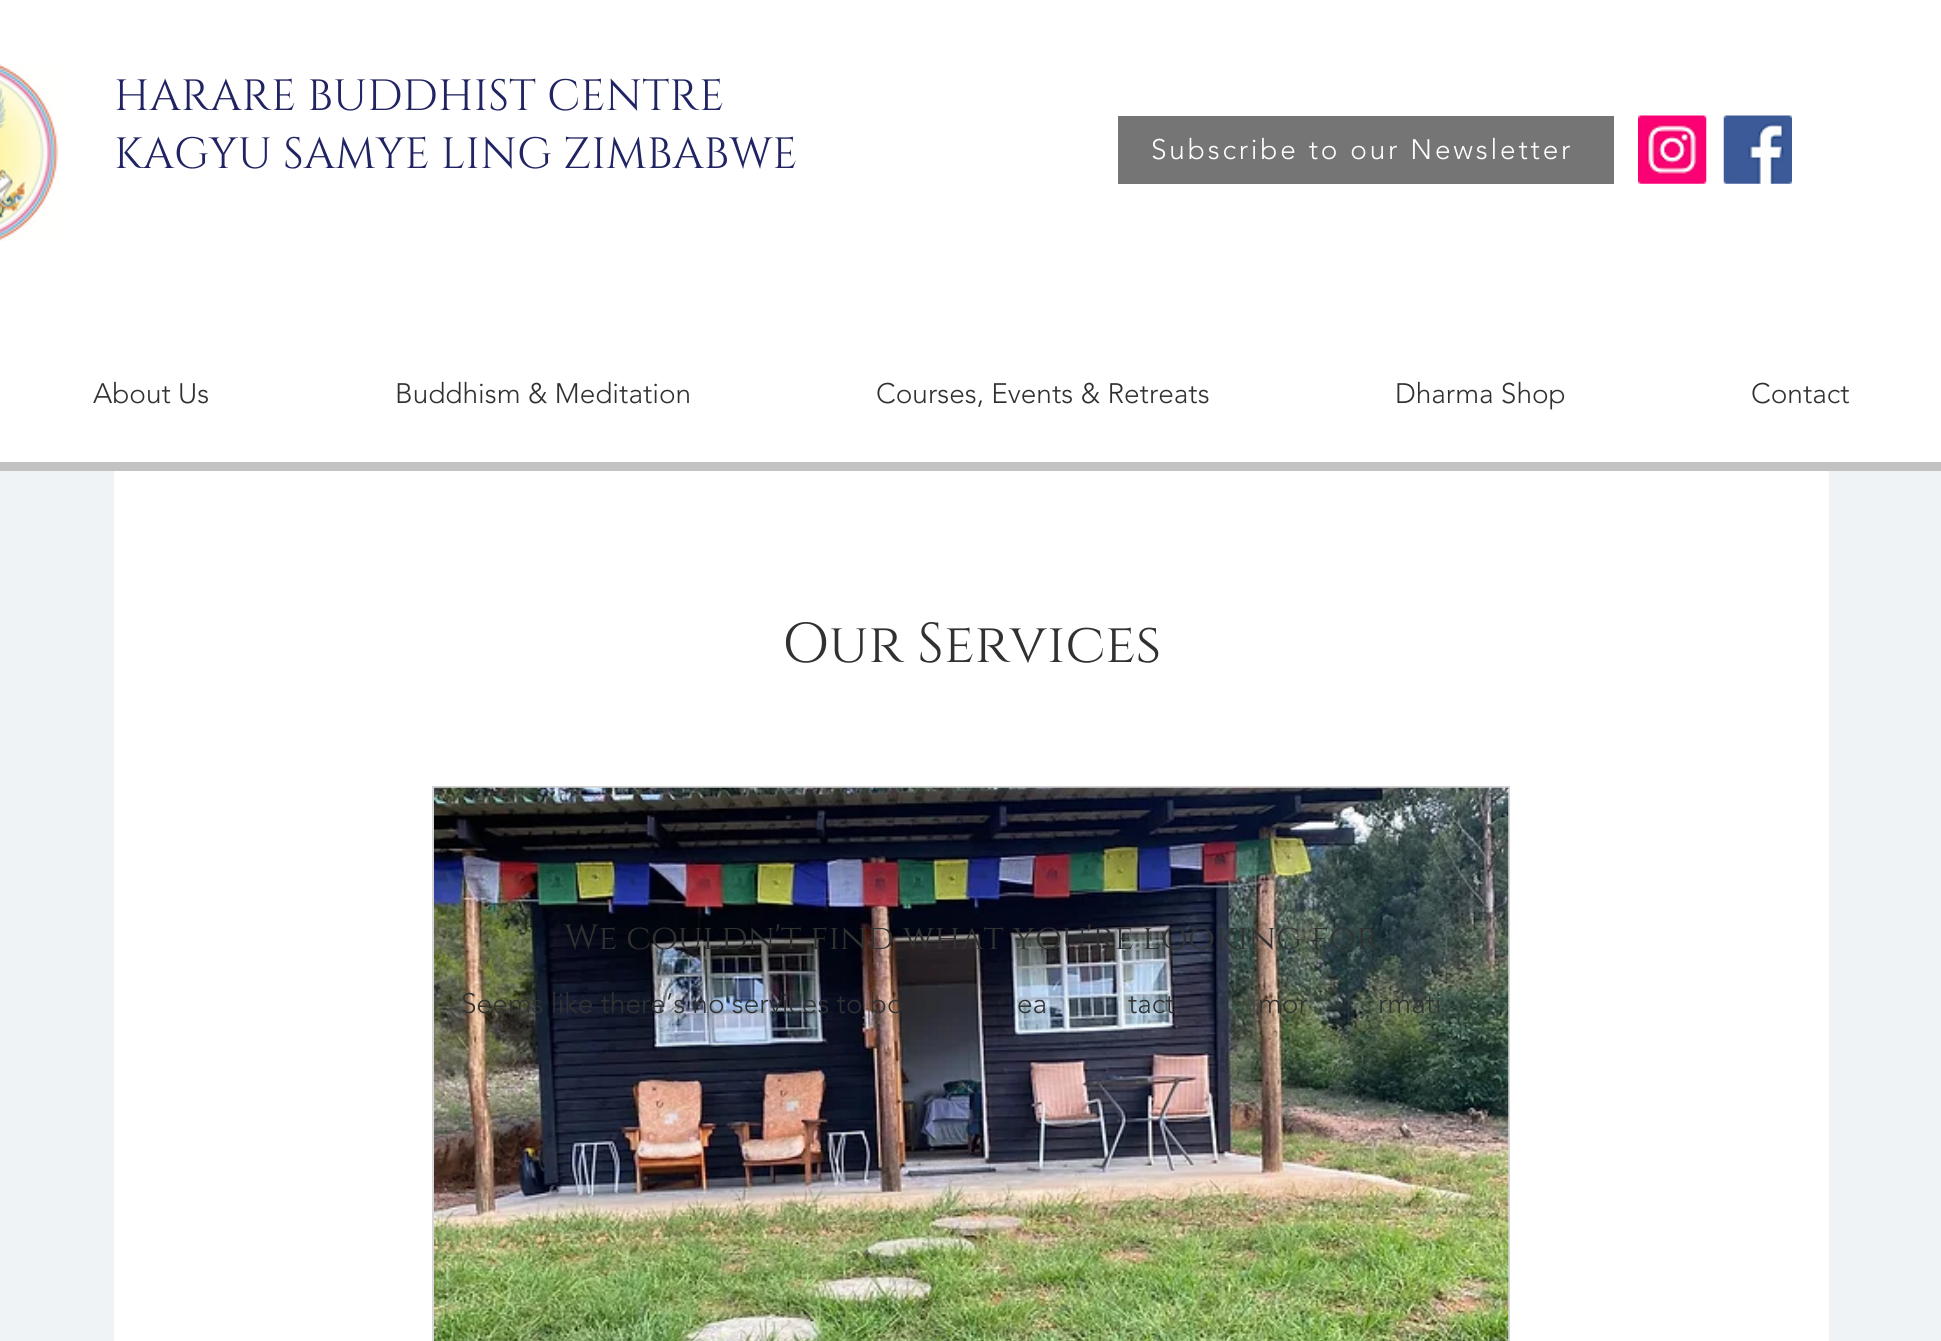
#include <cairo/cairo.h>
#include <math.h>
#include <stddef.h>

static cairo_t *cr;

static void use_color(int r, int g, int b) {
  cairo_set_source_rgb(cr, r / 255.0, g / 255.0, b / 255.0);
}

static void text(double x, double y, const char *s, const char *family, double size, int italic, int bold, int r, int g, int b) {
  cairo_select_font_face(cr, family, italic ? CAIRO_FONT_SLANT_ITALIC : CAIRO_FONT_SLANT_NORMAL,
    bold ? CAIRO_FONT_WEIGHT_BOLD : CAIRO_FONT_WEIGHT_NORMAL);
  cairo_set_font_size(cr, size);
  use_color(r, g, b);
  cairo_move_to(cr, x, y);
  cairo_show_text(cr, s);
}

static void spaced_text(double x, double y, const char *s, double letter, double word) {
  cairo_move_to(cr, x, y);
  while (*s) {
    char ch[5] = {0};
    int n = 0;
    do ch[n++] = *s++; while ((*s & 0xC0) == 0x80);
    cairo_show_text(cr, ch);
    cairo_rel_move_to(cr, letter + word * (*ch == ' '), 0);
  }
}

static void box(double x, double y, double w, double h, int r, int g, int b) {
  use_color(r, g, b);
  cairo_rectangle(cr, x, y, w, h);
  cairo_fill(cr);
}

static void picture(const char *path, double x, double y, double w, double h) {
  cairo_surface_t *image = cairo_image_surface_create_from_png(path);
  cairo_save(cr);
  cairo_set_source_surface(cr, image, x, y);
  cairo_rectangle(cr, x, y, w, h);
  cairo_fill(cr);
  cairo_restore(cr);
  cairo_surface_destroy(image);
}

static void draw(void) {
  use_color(240, 243, 246);
  cairo_paint(cr);
  box(0, 0, 1941, 462, 255, 255, 255);
  box(0, 462, 1941, 9, 194, 194, 194);
  picture("img_01.png", 0, 64, 59, 177);
  box(1118, 116, 496, 68, 117, 117, 117);
  picture("img_02.png", 1638, 115, 69, 69);
  picture("img_03.png", 1723, 115, 69, 69);
  box(114, 471, 1715, 870, 255, 255, 255);
  cairo_rectangle(cr, 433, 787, 1076, 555);
  use_color(214, 214, 214);
  cairo_stroke(cr);
  picture("img_04.png", 434, 787, 1075, 554);
  text(114, 110, "HARARE BUDDHIST CENTRE", "Cinzel", 43.75, 0, 0, 33, 36, 98);
  text(114, 168, "KAGYU SAMYE LING ZIMBABWE", "Cinzel", 43.75, 0, 0, 33, 36, 98);
  cairo_select_font_face(cr, "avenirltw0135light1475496 Light", CAIRO_FONT_SLANT_NORMAL, CAIRO_FONT_WEIGHT_NORMAL);
  cairo_set_font_size(cr, 28);
  use_color(255, 255, 255);
  spaced_text(1151, 159, "Subscribe to our Newsletter", 2.8, 0);
  text(93, 403, "About Us", "avenirltw0135light1475496 Light", 28, 0, 0, 48, 49, 49);
  text(395, 403, "Buddhism & Meditation", "avenirltw0135light1475496 Light", 28, 0, 0, 48, 49, 49);
  text(876, 403, "Courses, Events & Retreats", "avenirltw0135light1475496 Light", 28, 0, 0, 48, 49, 49);
  text(1395, 403, "Dharma Shop", "avenirltw0135light1475496 Light", 28, 0, 0, 48, 49, 49);
  text(1751, 403, "Contact", "avenirltw0135light1475496 Light", 28, 0, 0, 48, 49, 49);
  text(782, 662, "Our Services", "Cinzel", 56, 0, 0, 48, 49, 49);
  text(564, 949, "We couldn't find what you're looking for", "Cinzel", 35, 0, 0, 48, 49, 49);
  text(461, 1013, "Seems like there’s no services to bo", "avenirltw0135light1475496 Light", 28, 0, 0, 48, 49, 49);
  text(1017, 1013, "ea", "avenirltw0135light1475496 Light", 28, 0, 0, 48, 49, 49);
  text(1128, 1013, "tact", "avenirltw0135light1475496 Light", 28, 0, 0, 48, 49, 49);
  text(1258, 1013, "mor", "avenirltw0135light1475496 Light", 28, 0, 0, 48, 49, 49);
  text(1378, 1013, "rmati", "avenirltw0135light1475496 Light", 28, 0, 0, 48, 49, 49);
  text(1474, 1013, ".", "avenirltw0135light1475496 Light", 28, 0, 0, 48, 49, 49);
}

int main(void) {
  cairo_surface_t *surface = cairo_image_surface_create(CAIRO_FORMAT_RGB24, 1941, 1341);
  cr = cairo_create(surface);
  cairo_font_options_t *options = cairo_font_options_create();
  cairo_font_options_set_hint_metrics(options, CAIRO_HINT_METRICS_OFF);
  cairo_font_options_set_hint_style(options, CAIRO_HINT_STYLE_NONE);
  cairo_set_font_options(cr, options);
  cairo_set_miter_limit(cr, 4);
  draw();
  cairo_surface_write_to_png(surface, "out.png");
  cairo_font_options_destroy(options);
  cairo_destroy(cr);
  cairo_surface_destroy(surface);
  return 0;
}
